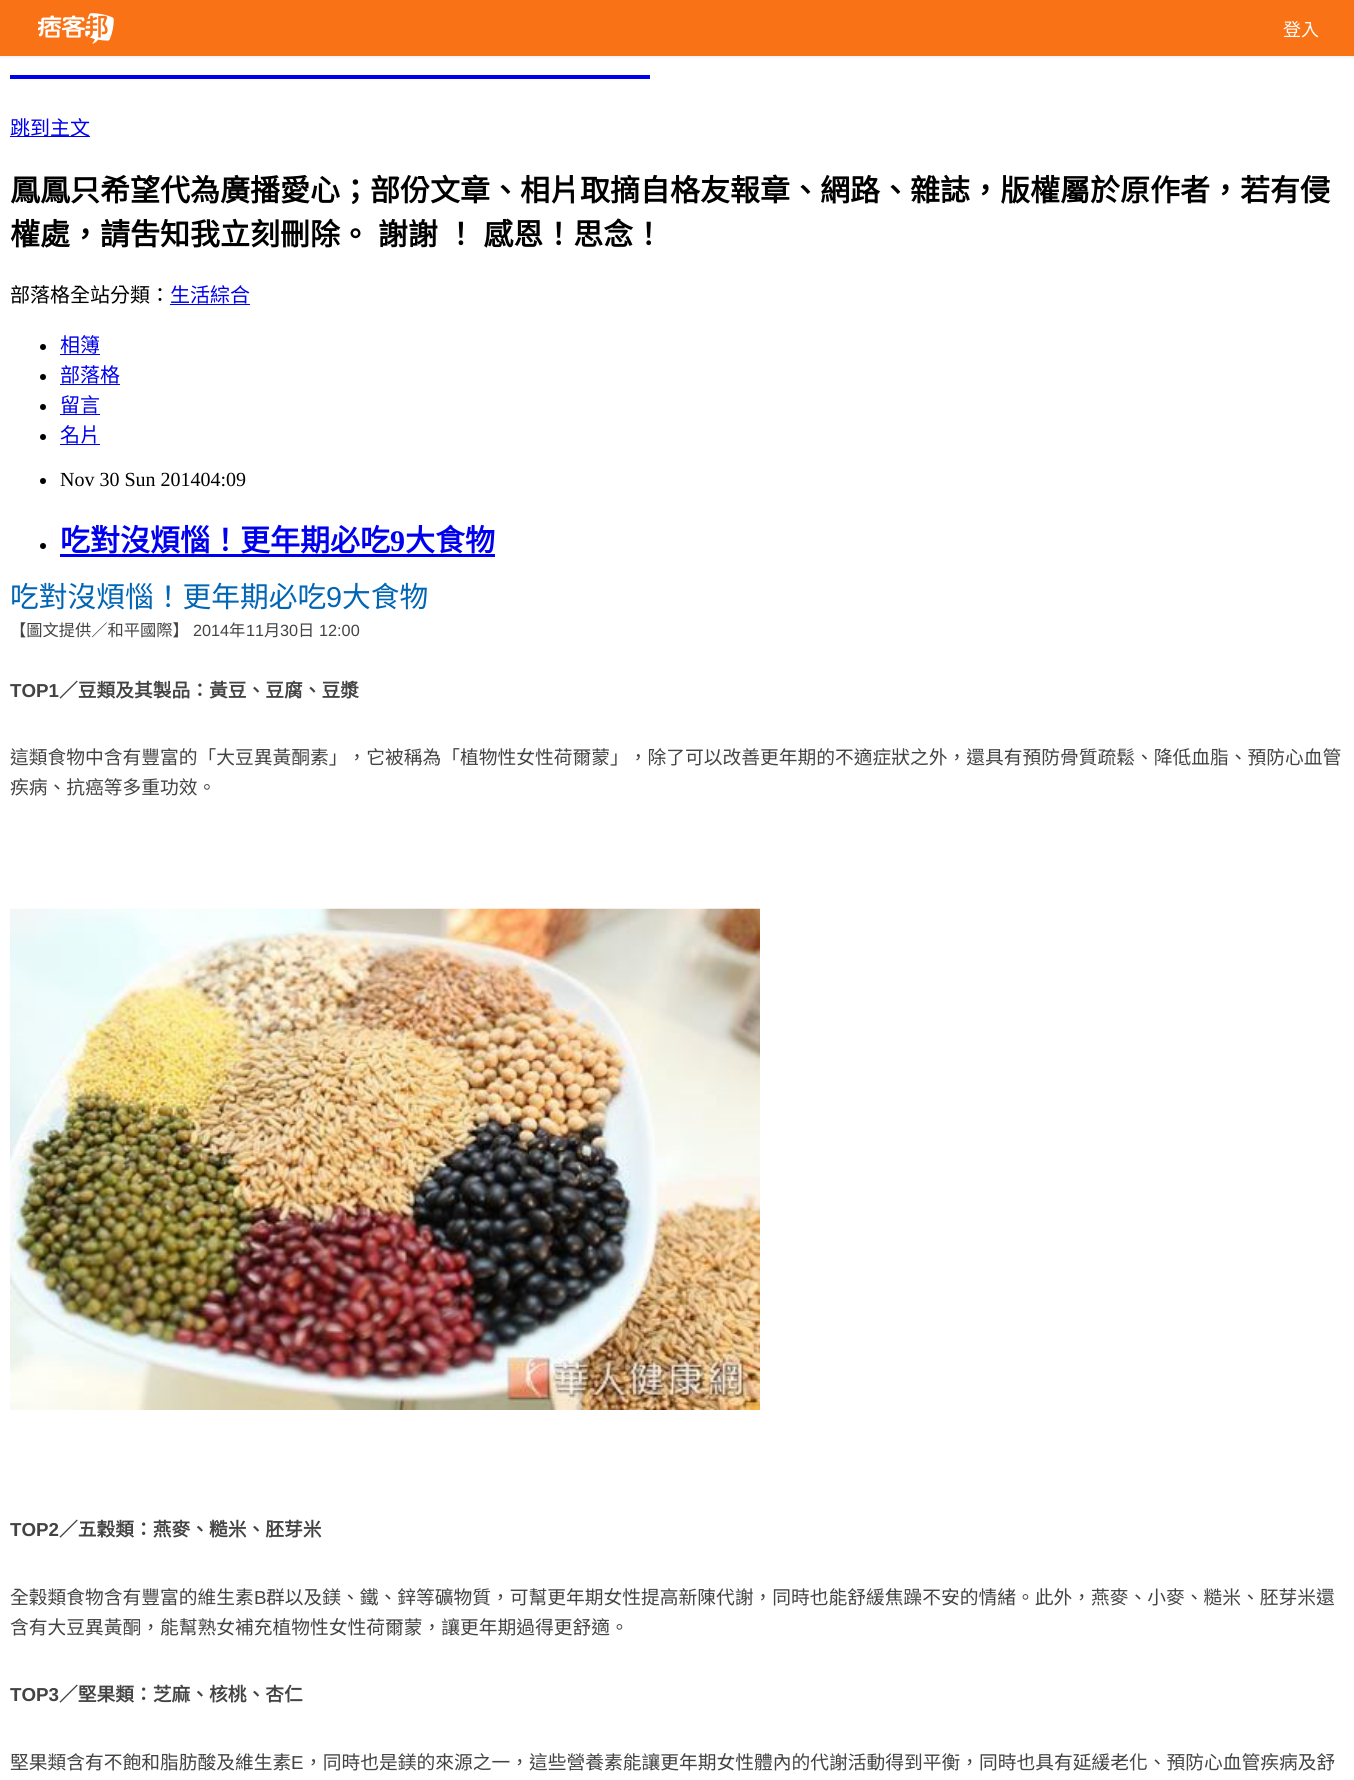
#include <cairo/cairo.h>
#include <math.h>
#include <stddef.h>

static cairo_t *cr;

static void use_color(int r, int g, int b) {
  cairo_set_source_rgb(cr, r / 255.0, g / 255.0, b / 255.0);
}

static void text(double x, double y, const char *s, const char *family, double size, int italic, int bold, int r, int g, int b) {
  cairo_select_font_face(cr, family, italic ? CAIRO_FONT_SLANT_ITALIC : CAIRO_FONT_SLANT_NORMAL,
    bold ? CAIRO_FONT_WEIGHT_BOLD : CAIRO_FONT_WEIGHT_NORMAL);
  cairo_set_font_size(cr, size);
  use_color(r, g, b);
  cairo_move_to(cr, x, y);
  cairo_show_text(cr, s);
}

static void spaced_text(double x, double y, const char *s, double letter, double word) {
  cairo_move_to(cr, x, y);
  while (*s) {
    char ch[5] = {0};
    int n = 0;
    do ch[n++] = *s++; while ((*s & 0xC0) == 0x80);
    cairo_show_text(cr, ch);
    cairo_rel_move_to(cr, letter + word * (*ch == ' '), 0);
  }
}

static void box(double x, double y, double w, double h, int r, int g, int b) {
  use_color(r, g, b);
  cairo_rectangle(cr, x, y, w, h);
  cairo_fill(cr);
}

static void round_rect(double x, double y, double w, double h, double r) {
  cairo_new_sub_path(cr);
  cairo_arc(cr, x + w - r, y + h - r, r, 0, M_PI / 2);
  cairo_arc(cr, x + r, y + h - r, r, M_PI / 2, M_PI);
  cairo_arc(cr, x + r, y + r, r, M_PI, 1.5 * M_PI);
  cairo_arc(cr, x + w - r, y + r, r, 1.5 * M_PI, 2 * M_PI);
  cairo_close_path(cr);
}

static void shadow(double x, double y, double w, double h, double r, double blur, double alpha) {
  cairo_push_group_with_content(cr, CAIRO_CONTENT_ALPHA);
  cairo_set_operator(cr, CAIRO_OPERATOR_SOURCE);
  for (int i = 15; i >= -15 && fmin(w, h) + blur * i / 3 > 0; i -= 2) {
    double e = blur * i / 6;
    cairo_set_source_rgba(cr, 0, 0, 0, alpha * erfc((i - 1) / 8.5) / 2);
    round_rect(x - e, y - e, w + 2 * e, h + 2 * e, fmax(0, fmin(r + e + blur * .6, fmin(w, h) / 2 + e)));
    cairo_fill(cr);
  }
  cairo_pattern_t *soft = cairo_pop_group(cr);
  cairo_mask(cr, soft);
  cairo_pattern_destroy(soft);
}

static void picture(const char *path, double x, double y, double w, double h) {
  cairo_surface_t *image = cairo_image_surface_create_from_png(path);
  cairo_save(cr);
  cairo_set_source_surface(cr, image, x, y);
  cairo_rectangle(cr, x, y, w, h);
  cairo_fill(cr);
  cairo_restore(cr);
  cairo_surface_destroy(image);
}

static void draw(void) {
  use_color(255, 255, 255);
  cairo_paint(cr);
  use_color(0, 0, 0);
  shadow(0, 1, 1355, 57, 0, 1, 0.05);
  box(0, 0, 1354, 56, 249, 115, 22);
  picture("img_01.png", 38, 13, 76, 31);
  box(10, 75, 640, 4, 0, 0, 238);
  box(10, 136, 80, 1, 0, 0, 238);
  box(170, 304, 80, 1, 0, 0, 238);
  use_color(0, 0, 0);
  cairo_arc(cr, 43, 347, 3, 0, 2 * M_PI);
  cairo_fill(cr);
  box(60, 354, 40, 1, 0, 0, 238);
  use_color(0, 0, 0);
  cairo_arc(cr, 43, 377, 3, 0, 2 * M_PI);
  cairo_fill(cr);
  box(60, 384, 60, 1, 0, 0, 238);
  use_color(0, 0, 0);
  cairo_arc(cr, 43, 407, 3, 0, 2 * M_PI);
  cairo_fill(cr);
  box(60, 414, 40, 1, 0, 0, 238);
  use_color(0, 0, 0);
  cairo_arc(cr, 43, 437, 3, 0, 2 * M_PI);
  cairo_fill(cr);
  box(60, 444, 40, 1, 0, 0, 238);
  use_color(0, 0, 0);
  cairo_arc(cr, 43, 481, 3, 0, 2 * M_PI);
  cairo_fill(cr);
  cairo_arc(cr, 43, 546, 3, 0, 2 * M_PI);
  cairo_fill(cr);
  box(60, 554, 435, 3, 0, 0, 238);
  picture("img_02.png", 10, 908, 750, 502);
  text(1283, 36, "登入", "Noto Sans CJK TC", 18, 0, 0, 255, 255, 255);
  text(10, 135, "跳到主文", "Noto Sans CJK TC", 20, 0, 0, 0, 0, 238);
  text(10, 201, "鳳鳳只希望代為廣播愛心；部份文章、相片取摘自格友報章、網路、雜誌，版權屬於原作者，若有侵", "Noto Sans CJK TC", 30, 0, 1, 0, 0, 0);
  spaced_text(10, 245, "權處，請吿知我立刻刪除。 謝謝 ！ 感恩！思念！", 0, 1);
  text(10, 302, "部落格全站分類：", "Noto Sans CJK TC", 20, 0, 0, 0, 0, 0);
  text(170, 302, "生活綜合", "Noto Sans CJK TC", 20, 0, 0, 0, 0, 238);
  text(60, 352, "相簿", "Noto Sans CJK TC", 20, 0, 0, 0, 0, 238);
  text(60, 382, "部落格", "Noto Sans CJK TC", 20, 0, 0, 0, 0, 238);
  text(60, 412, "留言", "Noto Sans CJK TC", 20, 0, 0, 0, 0, 238);
  text(60, 442, "名片", "Noto Sans CJK TC", 20, 0, 0, 0, 0, 238);
  text(60, 486, "Nov 30 Sun 201404:09", "Liberation Serif", 20, 0, 0, 0, 0, 0);
  text(60, 551, "吃對沒煩惱！更年期必吃", "Noto Sans CJK TC", 30, 0, 1, 0, 0, 238);
  text(390, 551, "9", "Liberation Serif", 30, 0, 1, 0, 0, 238);
  text(405, 551, "大食物", "Noto Sans CJK TC", 30, 0, 1, 0, 0, 238);
  text(10, 607, "吃對沒煩惱！更年期必吃", "Noto Sans CJK TC", 28.75, 0, 0, 0, 101, 181);
  text(326, 607, "9", "Liberation Sans", 28.75, 0, 0, 0, 101, 181);
  text(342, 607, "大食物", "Noto Sans CJK TC", 28.75, 0, 0, 0, 101, 181);
  text(10, 636, "【圖文提供／和平國際】", "Noto Sans CJK TC", 16.25, 0, 0, 67, 67, 67);
  text(193, 636, "2014", "Liberation Sans", 16.25, 0, 0, 67, 67, 67);
  text(229, 636, "年", "Noto Sans CJK TC", 16.25, 0, 0, 67, 67, 67);
  text(246, 636, "11", "Liberation Sans", 16.25, 0, 0, 67, 67, 67);
  text(264, 636, "月", "Noto Sans CJK TC", 16.25, 0, 0, 67, 67, 67);
  text(280, 636, "30", "Liberation Sans", 16.25, 0, 0, 67, 67, 67);
  text(298, 636, "日", "Noto Sans CJK TC", 16.25, 0, 0, 67, 67, 67);
  text(319, 636, "12:00", "Liberation Sans", 16.25, 0, 0, 67, 67, 67);
  text(10, 697, "TOP1", "Liberation Sans", 18.75, 0, 1, 67, 67, 67);
  text(59, 697, "／豆類及其製品：黃豆、豆腐、豆漿", "Noto Sans CJK TC", 18.75, 0, 1, 67, 67, 67);
  text(10, 764, "這類食物中含有豐富的「大豆異黃酮素」，它被稱為「植物性女性荷爾蒙」，除了可以改善更年期的不適症狀之外，還具有預防骨質疏鬆、降低血脂、預防心血管", "Noto Sans CJK TC", 18.75, 0, 0, 67, 67, 67);
  text(10, 794, "疾病、抗癌等多重功效。", "Noto Sans CJK TC", 18.75, 0, 0, 67, 67, 67);
  text(10, 1536, "TOP2", "Liberation Sans", 18.75, 0, 1, 67, 67, 67);
  text(59, 1536, "／五穀類：燕麥、糙米、胚芽米", "Noto Sans CJK TC", 18.75, 0, 1, 67, 67, 67);
  text(10, 1604, "全穀類食物含有豐富的維生素", "Noto Sans CJK TC", 18.75, 0, 0, 67, 67, 67);
  text(254, 1604, "B", "Liberation Sans", 18.75, 0, 0, 67, 67, 67);
  text(266, 1604, "群以及鎂、鐵、鋅等礦物質，可幫更年期女性提高新陳代謝，同時也能舒緩焦躁不安的情緒。此外，燕麥、小麥、糙米、胚芽米還", "Noto Sans CJK TC", 18.75, 0, 0, 67, 67, 67);
  text(10, 1634, "含有大豆異黃酮，能幫熟女補充植物性女性荷爾蒙，讓更年期過得更舒適。", "Noto Sans CJK TC", 18.75, 0, 0, 67, 67, 67);
  text(10, 1701, "TOP3", "Liberation Sans", 18.75, 0, 1, 67, 67, 67);
  text(59, 1701, "／堅果類：芝麻、核桃、杏仁", "Noto Sans CJK TC", 18.75, 0, 1, 67, 67, 67);
  text(10, 1769, "堅果類含有不飽和脂肪酸及維生素", "Noto Sans CJK TC", 18.75, 0, 0, 67, 67, 67);
  text(291, 1769, "E", "Liberation Sans", 18.75, 0, 0, 67, 67, 67);
  text(304, 1769, "，同時也是鎂的來源之一，這些營養素能讓更年期女性體內的代謝活動得到平衡，同時也具有延緩老化、預防心血管疾病及舒", "Noto Sans CJK TC", 18.75, 0, 0, 67, 67, 67);
}

int main(void) {
  cairo_surface_t *surface = cairo_image_surface_create(CAIRO_FORMAT_RGB24, 1354, 1780);
  cr = cairo_create(surface);
  cairo_font_options_t *options = cairo_font_options_create();
  cairo_font_options_set_hint_metrics(options, CAIRO_HINT_METRICS_OFF);
  cairo_font_options_set_hint_style(options, CAIRO_HINT_STYLE_NONE);
  cairo_set_font_options(cr, options);
  cairo_set_miter_limit(cr, 4);
  draw();
  cairo_surface_write_to_png(surface, "out.png");
  cairo_font_options_destroy(options);
  cairo_destroy(cr);
  cairo_surface_destroy(surface);
  return 0;
}
